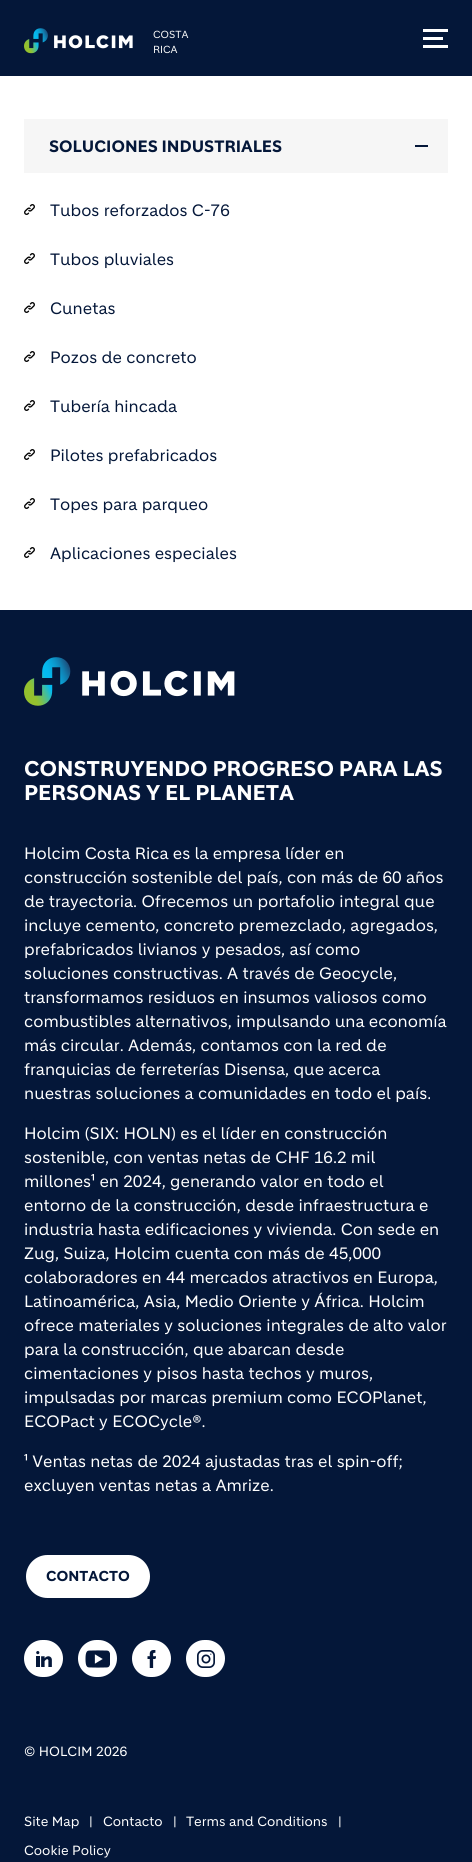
#include <cairo/cairo.h>
#include <math.h>
#include <stddef.h>

static cairo_t *cr;

static void use_color(int r, int g, int b) {
  cairo_set_source_rgb(cr, r / 255.0, g / 255.0, b / 255.0);
}

static void text(double x, double y, const char *s, const char *family, double size, int italic, int bold, int r, int g, int b) {
  cairo_select_font_face(cr, family, italic ? CAIRO_FONT_SLANT_ITALIC : CAIRO_FONT_SLANT_NORMAL,
    bold ? CAIRO_FONT_WEIGHT_BOLD : CAIRO_FONT_WEIGHT_NORMAL);
  cairo_set_font_size(cr, size);
  use_color(r, g, b);
  cairo_move_to(cr, x, y);
  cairo_show_text(cr, s);
}

static void box(double x, double y, double w, double h, int r, int g, int b) {
  use_color(r, g, b);
  cairo_rectangle(cr, x, y, w, h);
  cairo_fill(cr);
}

static void round_rect(double x, double y, double w, double h, double r) {
  cairo_new_sub_path(cr);
  cairo_arc(cr, x + w - r, y + h - r, r, 0, M_PI / 2);
  cairo_arc(cr, x + r, y + h - r, r, M_PI / 2, M_PI);
  cairo_arc(cr, x + r, y + r, r, M_PI, 1.5 * M_PI);
  cairo_arc(cr, x + w - r, y + r, r, 1.5 * M_PI, 2 * M_PI);
  cairo_close_path(cr);
}

static void picture(const char *path, double x, double y, double w, double h) {
  cairo_surface_t *image = cairo_image_surface_create_from_png(path);
  cairo_save(cr);
  cairo_set_source_surface(cr, image, x, y);
  cairo_rectangle(cr, x, y, w, h);
  cairo_fill(cr);
  cairo_restore(cr);
  cairo_surface_destroy(image);
}

static void draw(void) {
  use_color(255, 255, 255);
  cairo_paint(cr);
  box(0, 0, 472, 76, 4, 23, 57);
  picture("img_01.png", 24, 28, 109, 26);
  box(423, 29, 25, 3, 255, 255, 255);
  box(423, 37, 20, 3, 255, 255, 255);
  box(423, 45, 25, 3, 255, 255, 255);
  box(24, 119, 424, 54, 246, 246, 246);
  box(415, 145, 13, 2, 4, 23, 57);
  picture("img_02.png", 24, 204, 11, 11);
  picture("img_02.png", 24, 253, 11, 11);
  picture("img_02.png", 24, 302, 11, 11);
  picture("img_02.png", 24, 351, 11, 11);
  picture("img_02.png", 24, 400, 11, 11);
  picture("img_02.png", 24, 449, 11, 11);
  picture("img_02.png", 24, 498, 11, 11);
  picture("img_02.png", 24, 547, 11, 11);
  box(0, 610, 472, 1252, 4, 23, 57);
  picture("img_03.png", 24, 657, 211, 49);
  use_color(255, 255, 255);
  round_rect(25, 1554, 126, 45, 22.5);
  cairo_fill_preserve(cr);
  use_color(4, 23, 57);
  cairo_stroke(cr);
  use_color(255, 255, 255);
  round_rect(24, 1640, 39, 37, 18.5);
  cairo_fill(cr);
  picture("img_04.png", 36, 1651, 16, 16);
  round_rect(78, 1640, 39, 37, 18.5);
  cairo_fill(cr);
  picture("img_05.png", 85, 1650, 25, 18);
  round_rect(132, 1640, 39, 37, 18.5);
  cairo_fill(cr);
  picture("img_06.png", 147, 1650, 9, 18);
  round_rect(186, 1640, 39, 37, 18.5);
  cairo_fill(cr);
  picture("img_07.png", 197, 1650, 18, 18);
  text(153, 38, "COSTA", "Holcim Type", 10, 0, 0, 246, 246, 246);
  text(153, 53, "RICA", "Holcim Type", 10, 0, 0, 246, 246, 246);
  text(49, 152, "SOLUCIONES INDUSTRIALES", "Holcim Type", 16, 0, 1, 4, 23, 57);
  text(50, 216, "Tubos reforzados C-76", "Holcim Type", 16, 0, 0, 4, 23, 57);
  text(50, 265, "Tubos pluviales", "Holcim Type", 16, 0, 0, 4, 23, 57);
  text(50, 314, "Cunetas", "Holcim Type", 16, 0, 0, 4, 23, 57);
  text(50, 363, "Pozos de concreto", "Holcim Type", 16, 0, 0, 4, 23, 57);
  text(50, 412, "Tubería hincada", "Holcim Type", 16, 0, 0, 4, 23, 57);
  text(50, 461, "Pilotes prefabricados", "Holcim Type", 16, 0, 0, 4, 23, 57);
  text(50, 510, "Topes para parqueo", "Holcim Type", 16, 0, 0, 4, 23, 57);
  text(50, 559, "Aplicaciones especiales", "Holcim Type", 16, 0, 0, 4, 23, 57);
  text(24, 776, "CONSTRUYENDO PROGRESO PARA LAS", "Holcim Type", 20.75, 0, 1, 255, 255, 255);
  text(24, 800, "PERSONAS Y EL PLANETA", "Holcim Type", 20.75, 0, 1, 255, 255, 255);
  text(24, 859, "Holcim Costa Rica es la empresa líder en", "Holcim Type", 16, 0, 0, 255, 255, 255);
  text(24, 883, "construcción sostenible del país, con más de 60 años", "Holcim Type", 16, 0, 0, 255, 255, 255);
  text(24, 907, "de trayectoria. Ofrecemos un portafolio integral que", "Holcim Type", 16, 0, 0, 255, 255, 255);
  text(24, 931, "incluye cemento, concreto premezclado, agregados,", "Holcim Type", 16, 0, 0, 255, 255, 255);
  text(24, 955, "prefabricados livianos y pesados, así como", "Holcim Type", 16, 0, 0, 255, 255, 255);
  text(24, 979, "soluciones constructivas. A través de Geocycle,", "Holcim Type", 16, 0, 0, 255, 255, 255);
  text(24, 1003, "transformamos residuos en insumos valiosos como", "Holcim Type", 16, 0, 0, 255, 255, 255);
  text(24, 1027, "combustibles alternativos, impulsando una economía", "Holcim Type", 16, 0, 0, 255, 255, 255);
  text(24, 1051, "más circular. Además, contamos con la red de", "Holcim Type", 16, 0, 0, 255, 255, 255);
  text(24, 1075, "franquicias de ferreterías Disensa, que acerca", "Holcim Type", 16, 0, 0, 255, 255, 255);
  text(24, 1099, "nuestras soluciones a comunidades en todo el país.", "Holcim Type", 16, 0, 0, 255, 255, 255);
  text(24, 1139, "Holcim (SIX: HOLN) es el líder en construcción", "Holcim Type", 16, 0, 0, 255, 255, 255);
  text(24, 1163, "sostenible, con ventas netas de CHF 16.2 mil", "Holcim Type", 16, 0, 0, 255, 255, 255);
  text(24, 1187, "millones¹ en 2024, generando valor en todo el", "Holcim Type", 16, 0, 0, 255, 255, 255);
  text(24, 1211, "entorno de la construcción, desde infraestructura e", "Holcim Type", 16, 0, 0, 255, 255, 255);
  text(24, 1235, "industria hasta edificaciones y vivienda. Con sede en", "Holcim Type", 16, 0, 0, 255, 255, 255);
  text(24, 1259, "Zug, Suiza, Holcim cuenta con más de 45,000", "Holcim Type", 16, 0, 0, 255, 255, 255);
  text(24, 1283, "colaboradores en 44 mercados atractivos en Europa,", "Holcim Type", 16, 0, 0, 255, 255, 255);
  text(24, 1307, "Latinoamérica, Asia, Medio Oriente y África. Holcim", "Holcim Type", 16, 0, 0, 255, 255, 255);
  text(24, 1331, "ofrece materiales y soluciones integrales de alto valor", "Holcim Type", 16, 0, 0, 255, 255, 255);
  text(24, 1355, "para la construcción, que abarcan desde", "Holcim Type", 16, 0, 0, 255, 255, 255);
  text(24, 1379, "cimentaciones y pisos hasta techos y muros,", "Holcim Type", 16, 0, 0, 255, 255, 255);
  text(24, 1403, "impulsadas por marcas premium como ECOPlanet,", "Holcim Type", 16, 0, 0, 255, 255, 255);
  text(24, 1427, "ECOPact y ECOCycle®.", "Holcim Type", 16, 0, 0, 255, 255, 255);
  text(24, 1467, "¹ Ventas netas de 2024 ajustadas tras el spin-off;", "Holcim Type", 16, 0, 0, 255, 255, 255);
  text(24, 1491, "excluyen ventas netas a Amrize.", "Holcim Type", 16, 0, 0, 255, 255, 255);
  text(46, 1581, "CONTACTO", "Holcim Type", 14, 0, 1, 4, 23, 57);
  text(24, 1756, "© HOLCIM 2026", "Holcim Type", 13, 0, 0, 255, 255, 255);
  text(24, 1826, "Site Map", "Holcim Type", 13, 0, 0, 255, 255, 255);
  text(89, 1826, "|", "Holcim Type", 13, 0, 0, 255, 255, 255);
  text(103, 1826, "Contacto", "Holcim Type", 13, 0, 0, 255, 255, 255);
  text(173, 1826, "|", "Holcim Type", 13, 0, 0, 255, 255, 255);
  text(186, 1826, "Terms and Conditions", "Holcim Type", 13, 0, 0, 255, 255, 255);
  text(338, 1826, "|", "Holcim Type", 13, 0, 0, 255, 255, 255);
  text(24, 1855, "Cookie Policy", "Holcim Type", 13, 0, 0, 255, 255, 255);
}

int main(void) {
  cairo_surface_t *surface = cairo_image_surface_create(CAIRO_FORMAT_RGB24, 472, 1862);
  cr = cairo_create(surface);
  cairo_font_options_t *options = cairo_font_options_create();
  cairo_font_options_set_hint_metrics(options, CAIRO_HINT_METRICS_OFF);
  cairo_font_options_set_hint_style(options, CAIRO_HINT_STYLE_NONE);
  cairo_set_font_options(cr, options);
  cairo_set_miter_limit(cr, 4);
  draw();
  cairo_surface_write_to_png(surface, "out.png");
  cairo_font_options_destroy(options);
  cairo_destroy(cr);
  cairo_surface_destroy(surface);
  return 0;
}
